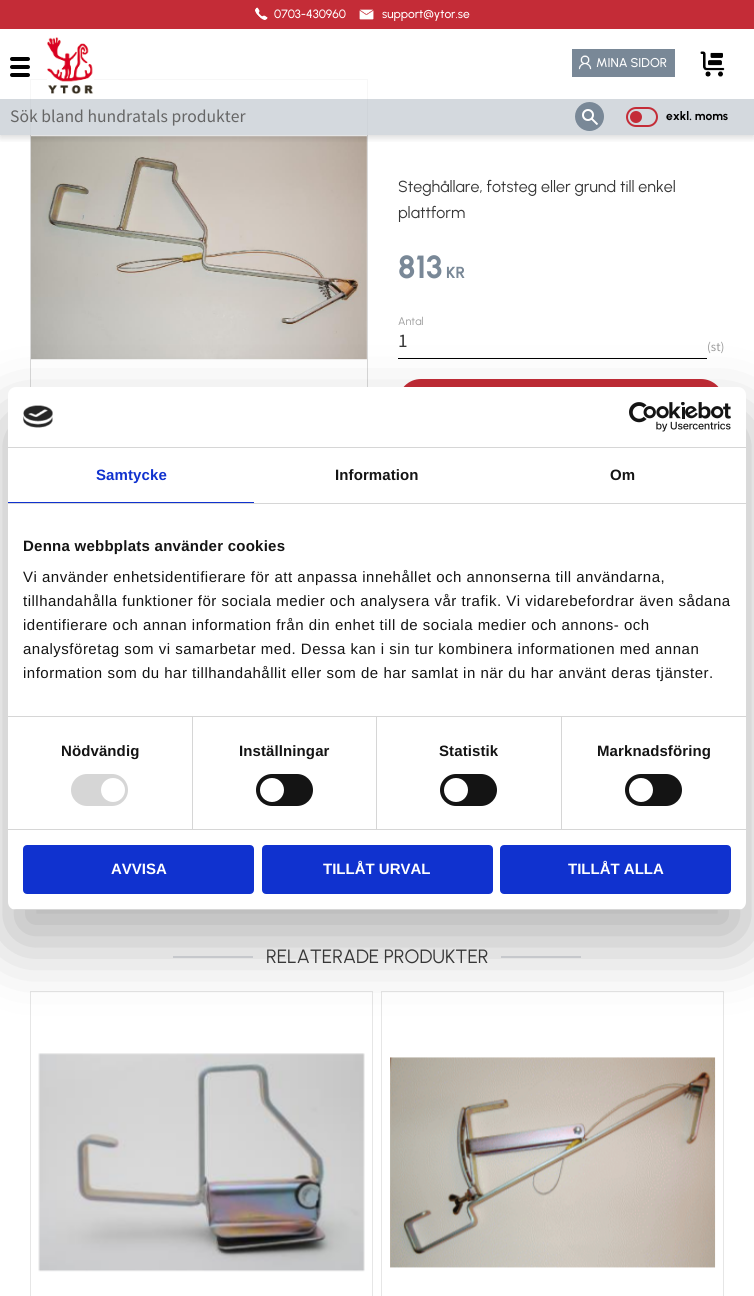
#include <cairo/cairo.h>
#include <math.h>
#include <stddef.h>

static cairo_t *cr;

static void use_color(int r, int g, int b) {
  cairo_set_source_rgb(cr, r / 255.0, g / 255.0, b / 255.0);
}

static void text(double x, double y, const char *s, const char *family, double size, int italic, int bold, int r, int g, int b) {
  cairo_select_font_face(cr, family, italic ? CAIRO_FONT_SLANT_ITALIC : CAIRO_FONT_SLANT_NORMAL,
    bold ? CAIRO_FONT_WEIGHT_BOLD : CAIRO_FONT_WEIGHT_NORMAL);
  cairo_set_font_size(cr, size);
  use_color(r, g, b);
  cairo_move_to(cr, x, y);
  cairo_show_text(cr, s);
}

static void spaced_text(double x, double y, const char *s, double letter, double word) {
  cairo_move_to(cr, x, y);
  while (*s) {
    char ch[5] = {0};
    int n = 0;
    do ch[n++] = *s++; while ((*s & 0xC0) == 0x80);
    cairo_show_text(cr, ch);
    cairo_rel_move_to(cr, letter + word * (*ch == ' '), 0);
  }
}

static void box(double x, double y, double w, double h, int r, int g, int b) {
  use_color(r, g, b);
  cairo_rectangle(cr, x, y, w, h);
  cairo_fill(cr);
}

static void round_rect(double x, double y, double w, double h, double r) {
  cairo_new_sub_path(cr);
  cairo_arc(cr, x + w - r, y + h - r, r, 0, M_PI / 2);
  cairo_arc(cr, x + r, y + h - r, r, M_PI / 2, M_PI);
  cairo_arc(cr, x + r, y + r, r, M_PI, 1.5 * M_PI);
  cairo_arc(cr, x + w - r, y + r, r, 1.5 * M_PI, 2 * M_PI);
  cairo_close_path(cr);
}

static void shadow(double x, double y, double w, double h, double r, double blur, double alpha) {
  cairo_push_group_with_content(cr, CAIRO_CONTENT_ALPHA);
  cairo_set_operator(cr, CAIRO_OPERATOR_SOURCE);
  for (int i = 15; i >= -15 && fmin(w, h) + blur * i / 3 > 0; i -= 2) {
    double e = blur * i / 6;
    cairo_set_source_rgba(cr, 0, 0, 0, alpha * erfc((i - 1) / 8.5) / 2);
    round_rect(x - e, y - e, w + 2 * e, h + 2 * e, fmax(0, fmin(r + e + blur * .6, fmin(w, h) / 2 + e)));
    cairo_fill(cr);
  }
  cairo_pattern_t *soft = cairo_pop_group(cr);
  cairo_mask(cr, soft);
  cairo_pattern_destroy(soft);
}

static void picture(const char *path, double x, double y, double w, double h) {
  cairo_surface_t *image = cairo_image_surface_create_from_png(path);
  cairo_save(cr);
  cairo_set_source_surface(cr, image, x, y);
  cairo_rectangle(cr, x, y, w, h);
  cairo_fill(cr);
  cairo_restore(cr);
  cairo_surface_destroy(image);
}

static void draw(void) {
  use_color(255, 255, 255);
  cairo_paint(cr);
  cairo_rectangle(cr, 30.5, 79.5, 337, 336);
  use_color(217, 217, 217);
  cairo_set_line_width(cr, 1);
  cairo_stroke(cr);
  picture("img_07.png", 31, 136, 336, 224);
  cairo_save(cr);
  cairo_rectangle(cr, 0, 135, 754, 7);
  cairo_clip(cr);
  use_color(0, 0, 0);
  shadow(0, 2, 754, 135, 0, 4, 0.17);
  cairo_restore(cr);
  cairo_set_source_rgba(cr, 1, 1, 1, 0.8);
  cairo_rectangle(cr, 30, 79, 338, 56);
  cairo_fill(cr);
  box(0, 0, 754, 29, 196, 44, 55);
  picture("img_01.png", 255, 7, 13, 13);
  picture("img_02.png", 359, 9, 15, 11);
  picture("img_03.png", 47, 37, 47, 57);
  box(572, 49, 103, 28, 121, 136, 151);
  picture("img_04.png", 578, 55, 14, 15);
  picture("img_05.png", 700, 51, 25, 26);
  cairo_set_source_rgba(cr, 0.475, 0.533, 0.592, 0.32);
  cairo_rectangle(cr, 0, 99, 754, 36);
  cairo_fill(cr);
  use_color(121, 136, 151);
  cairo_arc(cr, 589.5, 116.5, 14.5, 0, 2 * M_PI);
  cairo_fill(cr);
  picture("img_06.png", 582, 109, 16, 16);
  round_rect(627, 108, 30, 18, 9);
  use_color(196, 44, 55);
  cairo_set_line_width(cr, 2);
  cairo_stroke(cr);
  cairo_arc(cr, 636, 117, 6, 0, 2 * M_PI);
  cairo_fill(cr);
  use_color(0, 0, 0);
  round_rect(10, 65, 20, 4, 2);
  cairo_fill(cr);
  round_rect(10, 57, 20, 4, 2);
  cairo_fill(cr);
  round_rect(10, 73, 20, 4, 2);
  cairo_fill(cr);
  box(398, 358, 309, 1, 0, 0, 0);
  use_color(196, 44, 55);
  round_rect(398, 379, 326, 46, 23);
  cairo_fill(cr);
  box(173, 956, 80, 2, 222, 225, 229);
  box(501, 956, 80, 2, 222, 225, 229);
  cairo_rectangle(cr, 30.5, 991.5, 342, 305);
  use_color(230, 230, 230);
  cairo_set_line_width(cr, 1);
  cairo_stroke(cr);
  picture("img_08.png", 38, 1053, 327, 219);
  cairo_rectangle(cr, 381.5, 991.5, 342, 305);
  cairo_stroke(cr);
  picture("img_09.png", 390, 1057, 326, 211);
  use_color(0, 0, 0);
  shadow(8, 419, 738, 523, 8, 34, 0.3);
  use_color(255, 255, 255);
  round_rect(8, 387, 738, 523, 8);
  cairo_fill(cr);
  box(8, 447, 738, 1, 214, 214, 214);
  picture("img_10.png", 23, 405, 30, 23);
  picture("img_11.png", 629, 402, 102, 30);
  box(8, 503, 738, 1, 214, 214, 214);
  box(8, 502, 246, 1, 16, 50, 207);
  box(8, 716, 738, 1, 214, 214, 214);
  box(8, 829, 738, 1, 214, 214, 214);
  box(192, 717, 1, 112, 214, 214, 214);
  round_rect(71, 774, 57, 32, 16);
  cairo_fill(cr);
  use_color(255, 255, 255);
  cairo_arc(cr, 113, 790, 12, 0, 2 * M_PI);
  cairo_fill(cr);
  box(376, 717, 1, 112, 214, 214, 214);
  use_color(20, 20, 20);
  round_rect(256, 774, 57, 32, 16);
  cairo_fill(cr);
  use_color(255, 255, 255);
  cairo_arc(cr, 272, 790, 12, 0, 2 * M_PI);
  cairo_fill(cr);
  box(561, 717, 1, 112, 214, 214, 214);
  use_color(20, 20, 20);
  round_rect(440, 774, 57, 32, 16);
  cairo_fill(cr);
  use_color(255, 255, 255);
  cairo_arc(cr, 456, 790, 12, 0, 2 * M_PI);
  cairo_fill(cr);
  use_color(20, 20, 20);
  round_rect(625, 774, 57, 32, 16);
  cairo_fill(cr);
  use_color(255, 255, 255);
  cairo_arc(cr, 641, 790, 12, 0, 2 * M_PI);
  cairo_fill(cr);
  cairo_save(cr);
  round_rect(8, 387, 738, 523, 8);
  cairo_clip(cr);
  box(8, 909, 738, 1, 214, 214, 214);
  cairo_restore(cr);
  use_color(16, 50, 207);
  round_rect(24, 846, 229, 47, 3);
  cairo_fill_preserve(cr);
  cairo_set_line_width(cr, 2);
  cairo_stroke(cr);
  round_rect(263, 846, 229, 47, 3);
  cairo_fill_preserve(cr);
  cairo_stroke(cr);
  round_rect(501, 846, 229, 47, 3);
  cairo_fill_preserve(cr);
  cairo_stroke(cr);
  text(274, 18, "0703-430960", "Urbanist Medium", 12, 0, 0, 255, 255, 255);
  text(382, 18, "support@ytor.se", "Urbanist Medium", 12, 0, 0, 255, 255, 255);
  text(596, 67, "MINA SIDOR", "Urbanist Medium", 12.75, 0, 0, 255, 255, 255);
  text(10, 122, "Sök bland hundratals produkter", "Source Sans Pro", 17.6, 0, 0, 102, 102, 102);
  text(666, 120, "exkl. moms", "Urbanist", 12, 0, 1, 0, 0, 0);
  text(398, 192, "Steghållare, fotsteg eller grund till enkel", "Urbanist", 16, 0, 0, 55, 55, 55);
  text(398, 218, "plattform", "Urbanist", 16, 0, 0, 55, 55, 55);
  text(398, 278, "813", "Urbanist", 32, 0, 1, 121, 136, 151);
  text(446, 278, "KR", "Urbanist", 16, 0, 1, 121, 136, 151);
  text(398, 325, "Antal", "Urbanist", 11, 0, 0, 155, 155, 155);
  text(398, 347, "1", "Source Sans Pro", 19.25, 0, 0, 55, 55, 55);
  text(707, 351, "(st)", "Source Sans Pro", 12.75, 0, 0, 155, 155, 155);
  text(266, 963, "RELATERADE PRODUKTER", "Urbanist", 19.25, 0, 0, 55, 55, 55);
  cairo_select_font_face(cr, "Liberation Sans", CAIRO_FONT_SLANT_NORMAL, CAIRO_FONT_WEIGHT_BOLD);
  cairo_set_font_size(cr, 15);
  use_color(16, 50, 207);
  spaced_text(96, 480, "Samtycke", 0.1, 0);
  use_color(20, 20, 20);
  spaced_text(335, 480, "Information", 0.1, 0);
  spaced_text(610, 480, "Om", 0.1, 0);
  spaced_text(23, 551, "Denna webbplats använder cookies", 0.25, 0);
  cairo_select_font_face(cr, "Liberation Sans", CAIRO_FONT_SLANT_NORMAL, CAIRO_FONT_WEIGHT_NORMAL);
  spaced_text(23, 582, "Vi använder enhetsidentifierare för att anpassa innehållet och annonserna till användarna,", 0.5, 0);
  spaced_text(23, 606, "tillhandahålla funktioner för sociala medier och analysera vår trafik. Vi vidarebefordrar även sådana", 0.5, 0);
  spaced_text(23, 630, "identifierare och annan information från din enhet till de sociala medier och annons- och", 0.5, 0);
  spaced_text(23, 654, "analysföretag som vi samarbetar med. Dessa kan i sin tur kombinera informationen med annan", 0.5, 0);
  spaced_text(23, 678, "information som du har tillhandahållit eller som de har samlat in när du har använt deras tjänster.", 0.5, 0);
  cairo_select_font_face(cr, "Liberation Sans", CAIRO_FONT_SLANT_NORMAL, CAIRO_FONT_WEIGHT_BOLD);
  spaced_text(61, 756, "Nödvändig", 0.1, 0);
  spaced_text(239, 756, "Inställningar", 0.1, 0);
  spaced_text(439, 756, "Statistik", 0.1, 0);
  spaced_text(597, 756, "Marknadsföring", 0.1, 0);
  text(111, 874, "AVVISA", "Liberation Sans", 15, 0, 1, 255, 255, 255);
  text(323, 874, "TILLÅT URVAL", "Liberation Sans", 15, 0, 1, 255, 255, 255);
  text(568, 874, "TILLÅT ALLA", "Liberation Sans", 15, 0, 1, 255, 255, 255);
}

int main(void) {
  cairo_surface_t *surface = cairo_image_surface_create(CAIRO_FORMAT_RGB24, 754, 1296);
  cr = cairo_create(surface);
  cairo_font_options_t *options = cairo_font_options_create();
  cairo_font_options_set_hint_metrics(options, CAIRO_HINT_METRICS_OFF);
  cairo_font_options_set_hint_style(options, CAIRO_HINT_STYLE_NONE);
  cairo_set_font_options(cr, options);
  cairo_set_miter_limit(cr, 4);
  draw();
  cairo_surface_write_to_png(surface, "out.png");
  cairo_font_options_destroy(options);
  cairo_destroy(cr);
  cairo_surface_destroy(surface);
  return 0;
}
